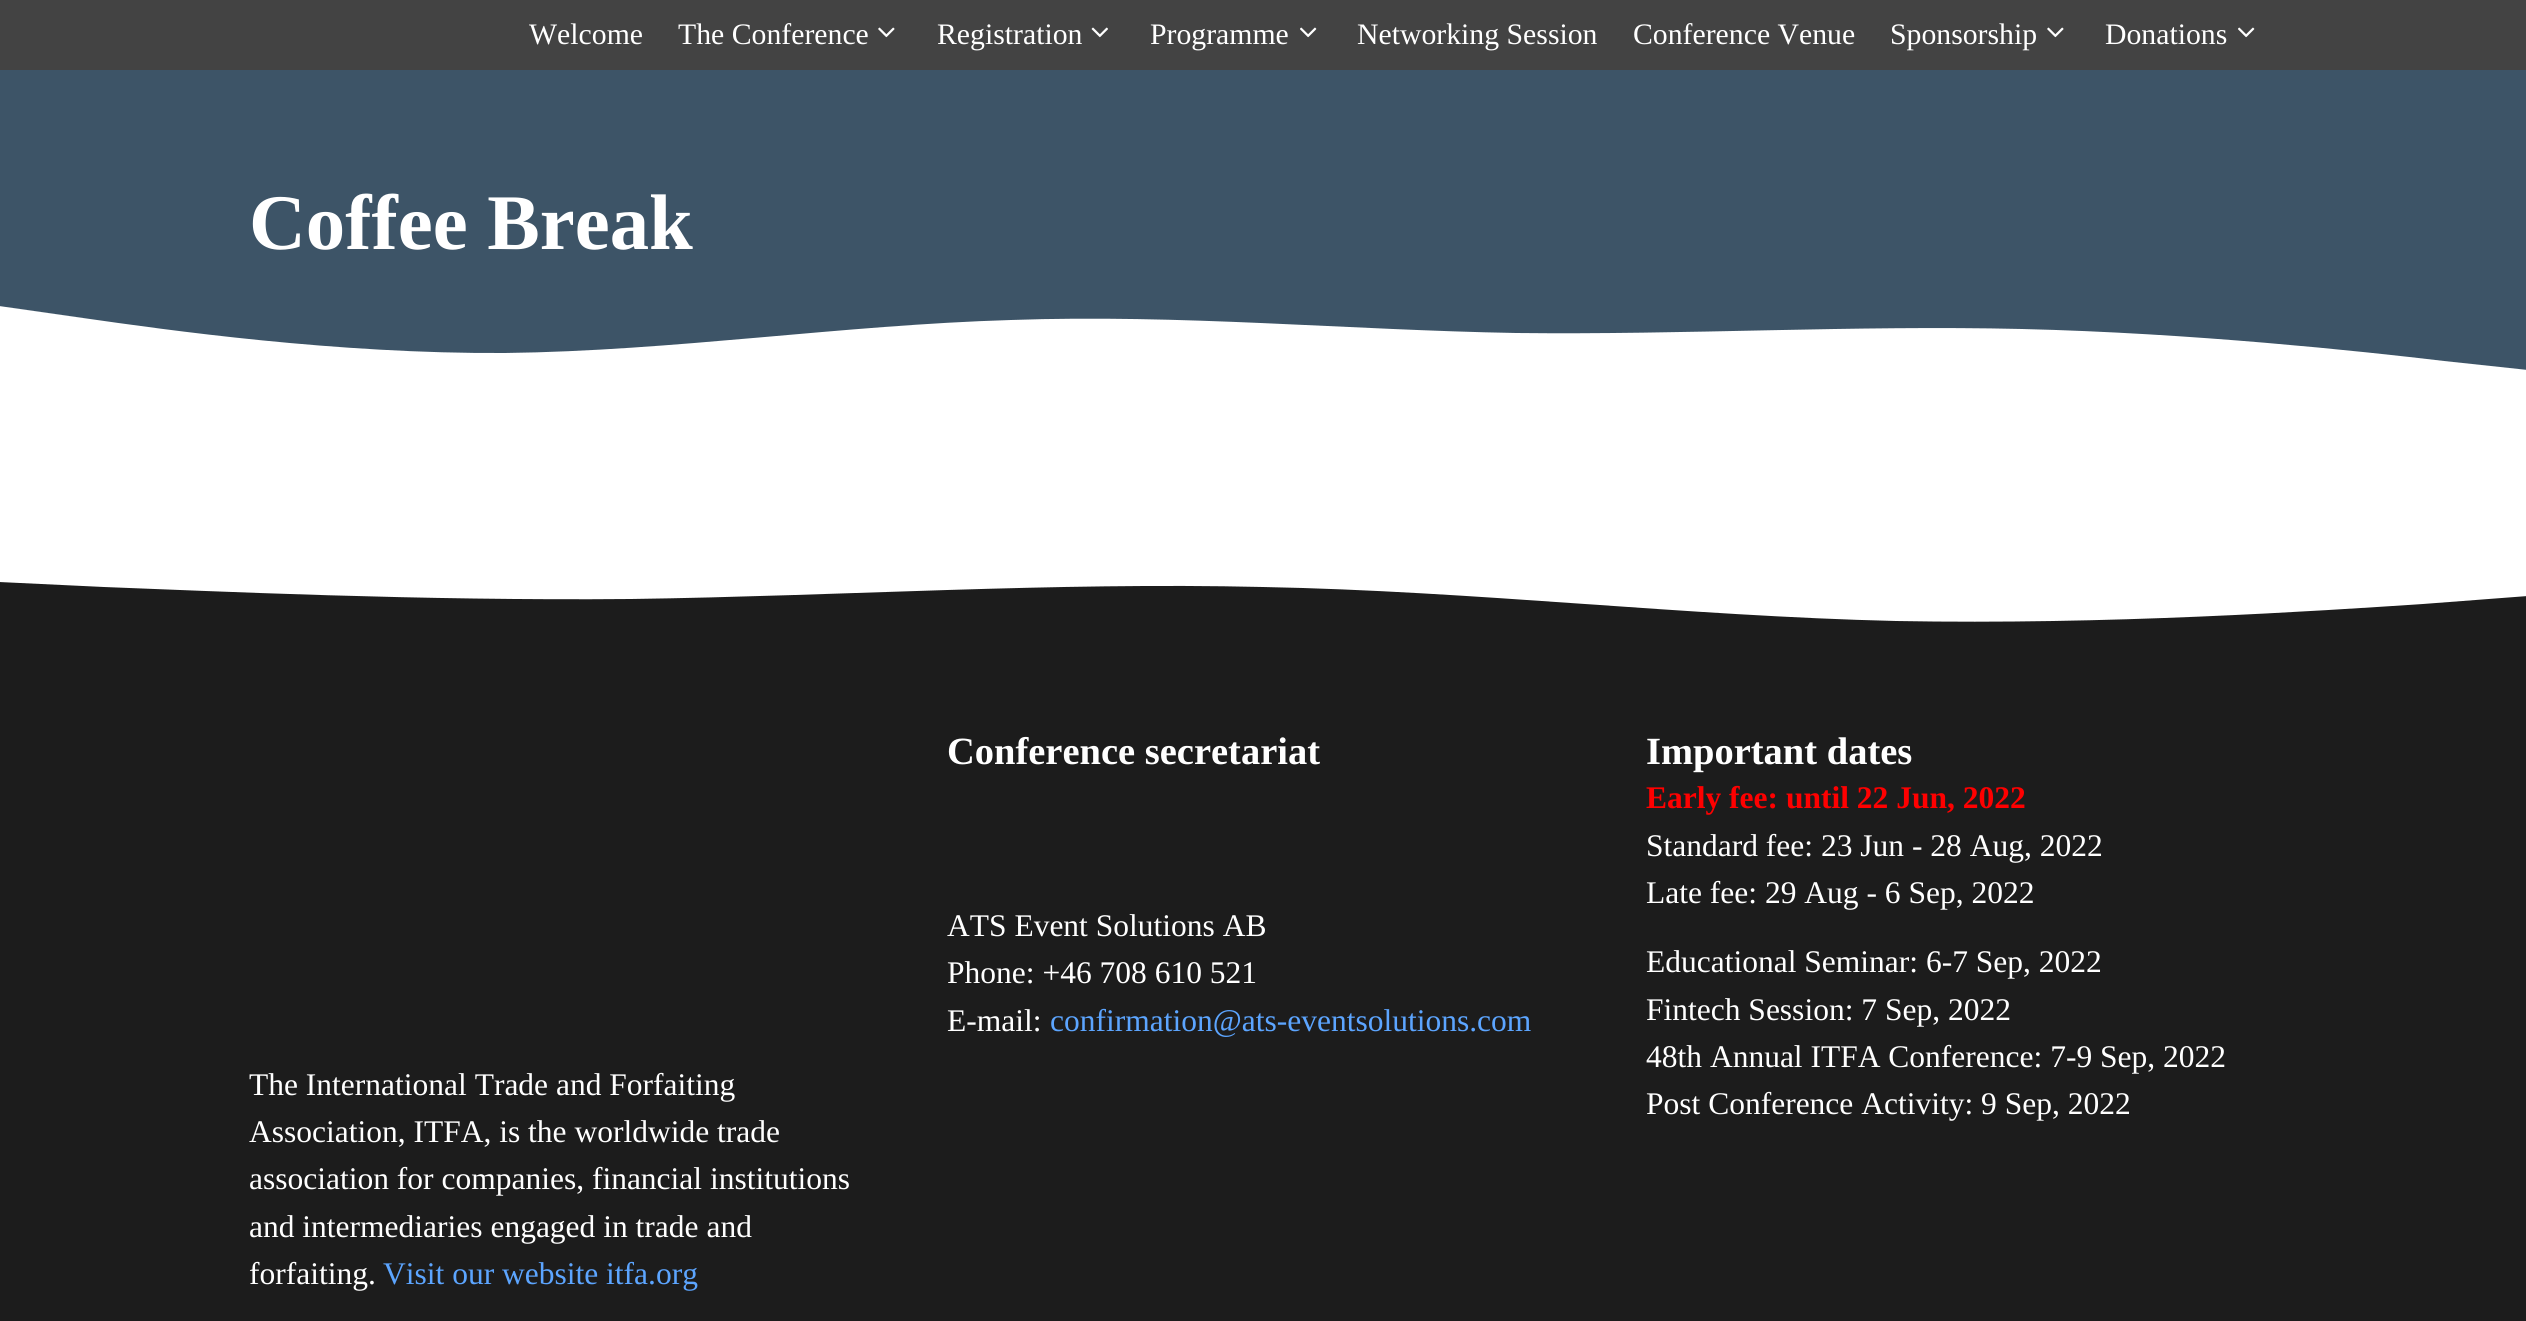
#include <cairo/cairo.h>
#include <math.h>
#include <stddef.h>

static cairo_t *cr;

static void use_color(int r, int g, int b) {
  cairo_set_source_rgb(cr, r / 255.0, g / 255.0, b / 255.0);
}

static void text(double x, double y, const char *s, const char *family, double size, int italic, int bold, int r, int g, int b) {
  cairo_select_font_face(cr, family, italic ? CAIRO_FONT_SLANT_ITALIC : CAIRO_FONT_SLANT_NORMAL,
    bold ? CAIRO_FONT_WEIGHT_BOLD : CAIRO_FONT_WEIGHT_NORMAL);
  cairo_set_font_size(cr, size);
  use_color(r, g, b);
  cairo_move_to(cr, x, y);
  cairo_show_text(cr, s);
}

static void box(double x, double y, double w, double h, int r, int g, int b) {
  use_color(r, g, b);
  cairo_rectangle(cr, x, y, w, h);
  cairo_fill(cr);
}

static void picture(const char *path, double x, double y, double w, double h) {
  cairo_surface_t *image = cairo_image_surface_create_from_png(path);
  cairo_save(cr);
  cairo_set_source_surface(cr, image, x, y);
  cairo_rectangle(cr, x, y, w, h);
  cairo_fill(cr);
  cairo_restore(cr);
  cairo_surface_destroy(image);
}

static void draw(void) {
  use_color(255, 255, 255);
  cairo_paint(cr);
  box(0, 0, 2526, 70, 67, 67, 67);
  picture("img_01.png", 878, 27, 17, 11);
  picture("img_02.png", 1091, 27, 17, 11);
  picture("img_03.png", 1300, 27, 17, 11);
  picture("img_01.png", 2047, 27, 17, 11);
  picture("img_03.png", 2238, 27, 17, 11);
  box(0, 70, 2526, 300, 61, 84, 103);
  cairo_save(cr);
  cairo_rectangle(cr, 0, 306, 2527, 69);
  cairo_clip(cr);
  use_color(255, 255, 255);
  cairo_new_path(cr);
  cairo_move_to(cr, -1, 306);
  cairo_line_to(cr, 83, 318);
  cairo_curve_to(cr, 167, 330, 336, 354, 505, 353);
  cairo_curve_to(cr, 673, 351, 842, 325, 1011, 320);
  cairo_curve_to(cr, 1179, 314, 1348, 330, 1516, 333);
  cairo_curve_to(cr, 1685, 335, 1854, 325, 2022, 329);
  cairo_curve_to(cr, 2191, 333, 2360, 351, 2444, 361);
  cairo_line_to(cr, 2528, 370);
  cairo_line_to(cr, 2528, 376);
  cairo_line_to(cr, -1, 376);
  cairo_close_path(cr);
  cairo_fill(cr);
  cairo_restore(cr);
  box(0, 582, 2526, 739, 28, 28, 28);
  cairo_save(cr);
  cairo_rectangle(cr, 0, 571, 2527, 52);
  cairo_clip(cr);
  use_color(255, 255, 255);
  cairo_new_path(cr);
  cairo_move_to(cr, 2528, 569);
  cairo_line_to(cr, -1, 569);
  cairo_line_to(cr, -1, 582);
  cairo_line_to(cr, 104, 587);
  cairo_curve_to(cr, 210, 591, 420, 601, 631, 599);
  cairo_curve_to(cr, 842, 596, 1053, 582, 1263, 587);
  cairo_curve_to(cr, 1474, 591, 1685, 616, 1896, 621);
  cairo_curve_to(cr, 2107, 625, 2317, 611, 2423, 604);
  cairo_line_to(cr, 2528, 596);
  cairo_close_path(cr);
  cairo_fill(cr);
  cairo_restore(cr);
  text(529, 44, "Welcome", "Liberation Serif", 29.75, 0, 0, 255, 255, 255);
  text(678, 44, "The Conference", "Liberation Serif", 29.75, 0, 0, 255, 255, 255);
  text(937, 44, "Registration", "Liberation Serif", 29.75, 0, 0, 255, 255, 255);
  text(1150, 44, "Programme", "Liberation Serif", 29.75, 0, 0, 255, 255, 255);
  text(1357, 44, "Networking Session", "Liberation Serif", 29.75, 0, 0, 255, 255, 255);
  text(1633, 44, "Conference Venue", "Liberation Serif", 29.75, 0, 0, 255, 255, 255);
  text(1890, 44, "Sponsorship", "Liberation Serif", 29.75, 0, 0, 255, 255, 255);
  text(2105, 44, "Donations", "Liberation Serif", 29.75, 0, 0, 255, 255, 255);
  text(249, 249, "Coffee Break", "Liberation Serif", 78.75, 0, 1, 255, 255, 255);
  text(947, 764, "Conference secretariat", "Liberation Serif", 38.5, 0, 1, 255, 255, 255);
  text(947, 936, "ATS Event Solutions AB", "Liberation Serif", 31.5, 0, 0, 255, 255, 255);
  text(947, 983, "Phone: +46 708 610 521", "Liberation Serif", 31.5, 0, 0, 255, 255, 255);
  text(947, 1031, "E-mail:", "Liberation Serif", 31.5, 0, 0, 255, 255, 255);
  text(1050, 1031, "confirmation@ats-eventsolutions.com", "Liberation Serif", 31.5, 0, 0, 92, 165, 255);
  text(1646, 764, "Important dates", "Liberation Serif", 38.5, 0, 1, 255, 255, 255);
  text(1646, 808, "Early fee: until 22 Jun, 2022", "Liberation Serif", 31.5, 0, 1, 255, 0, 0);
  text(1646, 856, "Standard fee: 23 Jun - 28 Aug, 2022", "Liberation Serif", 31.5, 0, 0, 255, 255, 255);
  text(1646, 903, "Late fee: 29 Aug - 6 Sep, 2022", "Liberation Serif", 31.5, 0, 0, 255, 255, 255);
  text(1646, 972, "Educational Seminar: 6-7 Sep, 2022", "Liberation Serif", 31.5, 0, 0, 255, 255, 255);
  text(1646, 1020, "Fintech Session: 7 Sep, 2022", "Liberation Serif", 31.5, 0, 0, 255, 255, 255);
  text(1646, 1067, "48th Annual ITFA Conference: 7-9 Sep, 2022", "Liberation Serif", 31.5, 0, 0, 255, 255, 255);
  text(1646, 1114, "Post Conference Activity: 9 Sep, 2022", "Liberation Serif", 31.5, 0, 0, 255, 255, 255);
  text(249, 1095, "The International Trade and Forfaiting", "Liberation Serif", 31.5, 0, 0, 255, 255, 255);
  text(249, 1142, "Association, ITFA, is the worldwide trade", "Liberation Serif", 31.5, 0, 0, 255, 255, 255);
  text(249, 1189, "association for companies, financial institutions", "Liberation Serif", 31.5, 0, 0, 255, 255, 255);
  text(249, 1237, "and intermediaries engaged in trade and", "Liberation Serif", 31.5, 0, 0, 255, 255, 255);
  text(249, 1284, "forfaiting.", "Liberation Serif", 31.5, 0, 0, 255, 255, 255);
  text(383, 1284, "Visit our website itfa.org", "Liberation Serif", 31.5, 0, 0, 92, 165, 255);
}

int main(void) {
  cairo_surface_t *surface = cairo_image_surface_create(CAIRO_FORMAT_RGB24, 2526, 1321);
  cr = cairo_create(surface);
  cairo_font_options_t *options = cairo_font_options_create();
  cairo_font_options_set_hint_metrics(options, CAIRO_HINT_METRICS_OFF);
  cairo_font_options_set_hint_style(options, CAIRO_HINT_STYLE_NONE);
  cairo_set_font_options(cr, options);
  cairo_set_miter_limit(cr, 4);
  draw();
  cairo_surface_write_to_png(surface, "out.png");
  cairo_font_options_destroy(options);
  cairo_destroy(cr);
  cairo_surface_destroy(surface);
  return 0;
}
